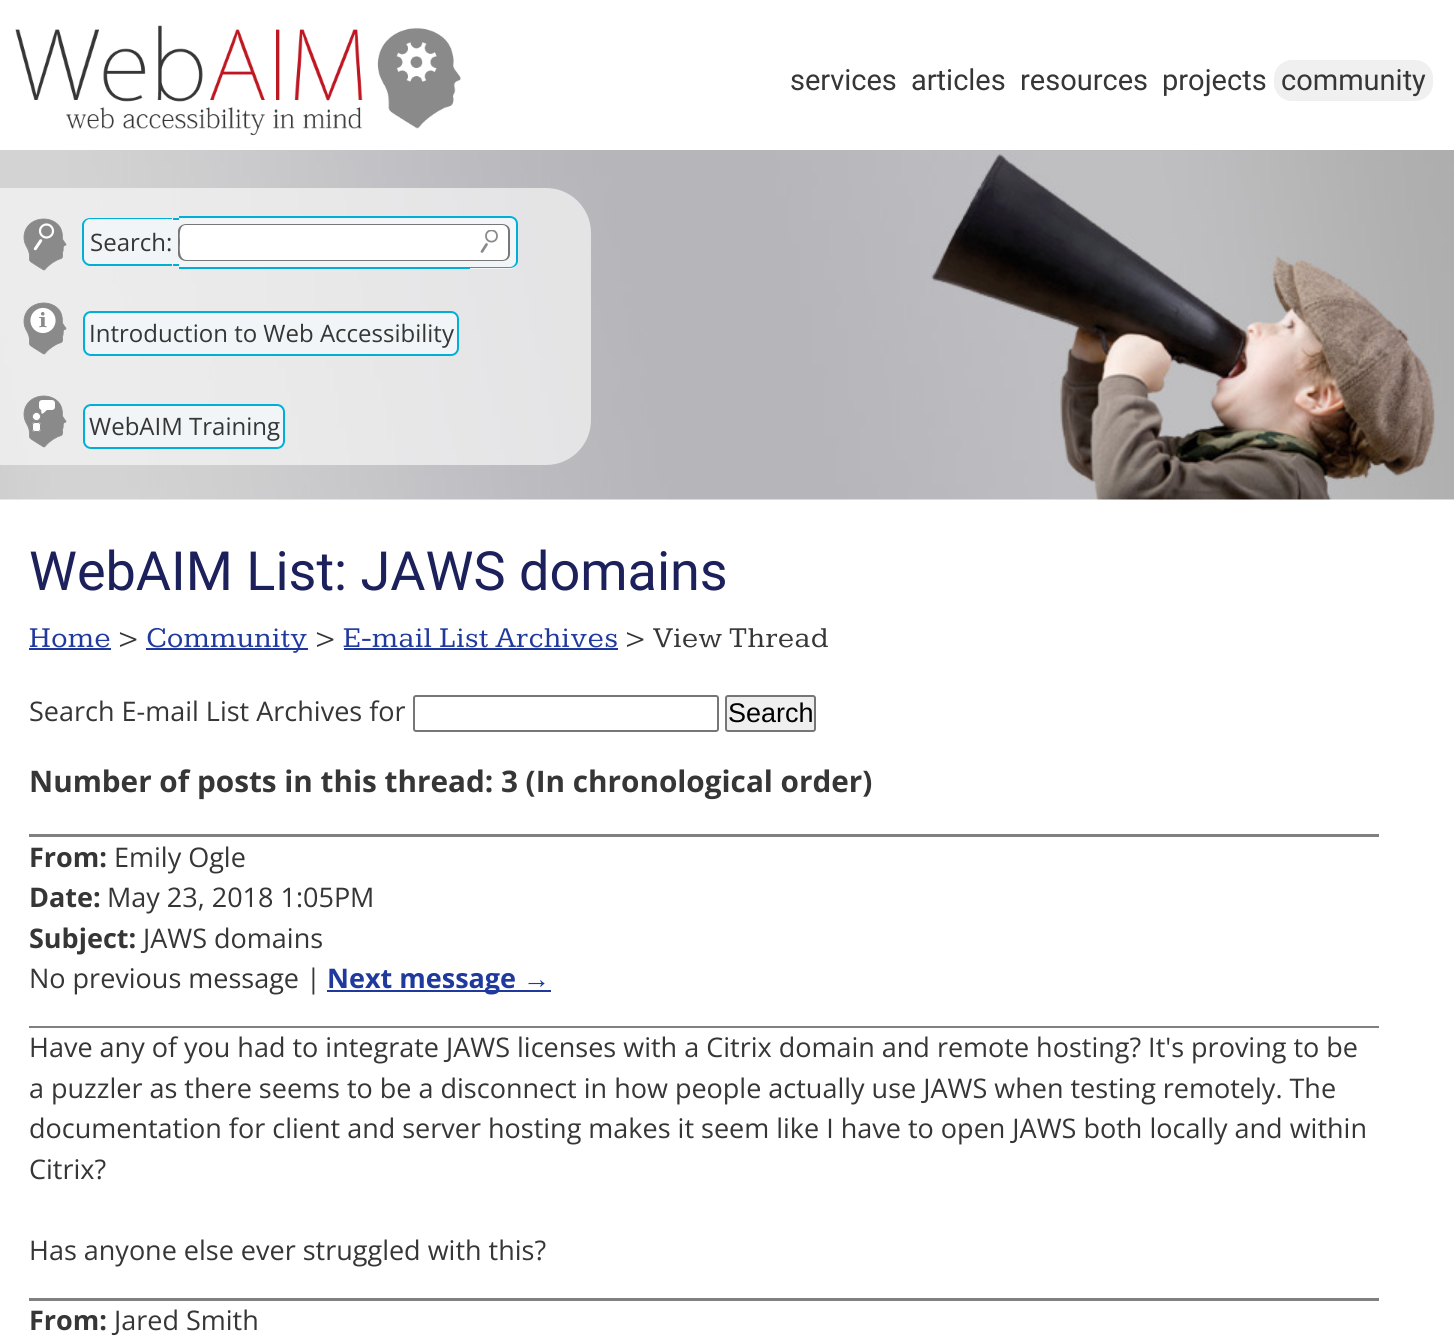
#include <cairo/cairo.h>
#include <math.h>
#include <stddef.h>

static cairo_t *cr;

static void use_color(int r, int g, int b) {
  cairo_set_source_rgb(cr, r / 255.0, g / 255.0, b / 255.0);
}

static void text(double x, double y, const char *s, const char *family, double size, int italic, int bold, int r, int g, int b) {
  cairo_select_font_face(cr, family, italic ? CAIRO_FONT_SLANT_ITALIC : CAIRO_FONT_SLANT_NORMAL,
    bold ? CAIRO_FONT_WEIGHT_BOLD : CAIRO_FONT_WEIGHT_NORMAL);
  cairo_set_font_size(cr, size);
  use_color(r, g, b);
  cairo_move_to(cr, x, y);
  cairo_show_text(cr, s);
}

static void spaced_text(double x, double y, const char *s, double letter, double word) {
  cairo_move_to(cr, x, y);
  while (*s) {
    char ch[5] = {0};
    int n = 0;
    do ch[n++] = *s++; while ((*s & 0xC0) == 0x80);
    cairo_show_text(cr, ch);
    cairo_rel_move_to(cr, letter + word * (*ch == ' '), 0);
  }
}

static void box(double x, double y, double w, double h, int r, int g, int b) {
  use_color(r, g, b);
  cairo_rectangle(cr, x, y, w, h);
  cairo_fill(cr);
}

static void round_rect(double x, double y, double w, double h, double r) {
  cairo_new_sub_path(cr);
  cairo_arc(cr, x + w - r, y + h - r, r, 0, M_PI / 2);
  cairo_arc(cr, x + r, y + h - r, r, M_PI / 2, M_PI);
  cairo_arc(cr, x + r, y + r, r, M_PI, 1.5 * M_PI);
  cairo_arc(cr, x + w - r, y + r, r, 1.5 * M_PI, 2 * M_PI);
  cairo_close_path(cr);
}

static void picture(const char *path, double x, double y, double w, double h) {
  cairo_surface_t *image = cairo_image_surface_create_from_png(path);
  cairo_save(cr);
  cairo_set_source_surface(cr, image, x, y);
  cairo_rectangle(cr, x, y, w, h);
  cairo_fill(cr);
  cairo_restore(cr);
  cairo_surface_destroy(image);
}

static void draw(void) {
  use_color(255, 255, 255);
  cairo_paint(cr);
  picture("img_01.png", 0, 150, 1454, 350);
  picture("img_02.png", 15, 25, 446, 111);
  picture("img_03.png", 395, 41, 43, 41);
  use_color(240, 240, 240);
  round_rect(1274, 60, 159, 41, 18);
  cairo_fill(cr);
  cairo_set_source_rgba(cr, 0.969, 0.969, 0.969, 0.7);
  round_rect(-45, 188, 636, 277, 45);
  cairo_fill(cr);
  picture("img_04.png", 23, 218, 44, 53);
  use_color(241, 245, 247);
  cairo_new_path(cr);
  cairo_move_to(cr, 91, 218);
  cairo_line_to(cr, 173, 218);
  cairo_line_to(cr, 173, 266);
  cairo_line_to(cr, 91, 266);
  cairo_curve_to(cr, 86.5, 266, 83, 262.5, 83, 258);
  cairo_line_to(cr, 83, 226);
  cairo_curve_to(cr, 83, 221.5, 86.5, 218, 91, 218);
  cairo_close_path(cr);
  cairo_fill(cr);
  use_color(0, 175, 216);
  cairo_set_fill_rule(cr, CAIRO_FILL_RULE_EVEN_ODD);
  cairo_new_path(cr);
  cairo_move_to(cr, 90, 218);
  cairo_line_to(cr, 172, 218);
  cairo_line_to(cr, 172, 266);
  cairo_line_to(cr, 90, 266);
  cairo_curve_to(cr, 86, 266, 82, 262, 82, 258);
  cairo_line_to(cr, 82, 225);
  cairo_curve_to(cr, 82, 221, 86, 218, 90, 218);
  cairo_close_path(cr);
  cairo_move_to(cr, 90, 219);
  cairo_line_to(cr, 172, 219);
  cairo_line_to(cr, 172, 264);
  cairo_line_to(cr, 90, 264);
  cairo_curve_to(cr, 87, 264, 84, 261, 84, 258);
  cairo_line_to(cr, 84, 225);
  cairo_curve_to(cr, 84, 222, 87, 219, 90, 219);
  cairo_close_path(cr);
  cairo_fill(cr);
  box(173, 218, 6, 48, 241, 245, 247);
  box(173, 218, 6, 2, 0, 175, 216);
  box(173, 264, 6, 2, 0, 175, 216);
  box(179, 218, 291, 49, 241, 245, 247);
  box(179, 216, 291, 2, 0, 175, 216);
  box(179, 267, 291, 2, 0, 175, 216);
  use_color(241, 245, 247);
  cairo_new_path(cr);
  cairo_move_to(cr, 470, 216);
  cairo_line_to(cr, 510, 216);
  cairo_curve_to(cr, 514.5, 216, 518, 219.5, 518, 224);
  cairo_line_to(cr, 518, 261);
  cairo_curve_to(cr, 518, 265.5, 514.5, 269, 510, 269);
  cairo_line_to(cr, 470, 269);
  cairo_close_path(cr);
  cairo_fill(cr);
  use_color(0, 175, 216);
  cairo_new_path(cr);
  cairo_move_to(cr, 470, 216);
  cairo_line_to(cr, 510, 216);
  cairo_curve_to(cr, 514, 216, 518, 219, 518, 224);
  cairo_line_to(cr, 518, 261);
  cairo_curve_to(cr, 518, 265, 514, 268, 510, 268);
  cairo_line_to(cr, 470, 268);
  cairo_close_path(cr);
  cairo_move_to(cr, 470, 218);
  cairo_line_to(cr, 510, 218);
  cairo_curve_to(cr, 513, 218, 516, 220, 516, 224);
  cairo_line_to(cr, 516, 261);
  cairo_curve_to(cr, 516, 264, 513, 267, 510, 267);
  cairo_line_to(cr, 470, 267);
  cairo_close_path(cr);
  cairo_fill(cr);
  use_color(255, 255, 255);
  cairo_new_path(cr);
  cairo_move_to(cr, 187, 224);
  cairo_line_to(cr, 470, 224);
  cairo_line_to(cr, 470, 261);
  cairo_line_to(cr, 187, 261);
  cairo_curve_to(cr, 182.5, 261, 179, 257.5, 179, 253);
  cairo_line_to(cr, 179, 232);
  cairo_curve_to(cr, 179, 227.5, 182.5, 224, 187, 224);
  cairo_close_path(cr);
  cairo_fill(cr);
  use_color(119, 119, 119);
  cairo_new_path(cr);
  cairo_move_to(cr, 186, 224);
  cairo_line_to(cr, 470, 224);
  cairo_line_to(cr, 470, 261);
  cairo_line_to(cr, 186, 261);
  cairo_curve_to(cr, 182, 261, 178, 258, 178, 254);
  cairo_line_to(cr, 178, 231);
  cairo_curve_to(cr, 178, 227, 182, 224, 186, 224);
  cairo_close_path(cr);
  cairo_move_to(cr, 186, 225);
  cairo_line_to(cr, 470, 225);
  cairo_line_to(cr, 470, 260);
  cairo_line_to(cr, 186, 260);
  cairo_curve_to(cr, 178, 259, 180, 247, 180, 242);
  cairo_curve_to(cr, 180, 237, 178, 225, 186, 225);
  cairo_close_path(cr);
  cairo_fill(cr);
  use_color(255, 255, 255);
  cairo_new_path(cr);
  cairo_move_to(cr, 470, 224);
  cairo_line_to(cr, 502, 224);
  cairo_curve_to(cr, 506.5, 224, 510, 227.5, 510, 232);
  cairo_line_to(cr, 510, 253);
  cairo_curve_to(cr, 510, 257.5, 506.5, 261, 502, 261);
  cairo_line_to(cr, 470, 261);
  cairo_close_path(cr);
  cairo_fill(cr);
  use_color(119, 119, 119);
  cairo_new_path(cr);
  cairo_move_to(cr, 470, 224);
  cairo_line_to(cr, 502, 224);
  cairo_curve_to(cr, 507, 224, 510, 227, 510, 231);
  cairo_line_to(cr, 510, 254);
  cairo_curve_to(cr, 510, 258, 507, 261, 502, 261);
  cairo_line_to(cr, 470, 261);
  cairo_close_path(cr);
  cairo_move_to(cr, 470, 225);
  cairo_line_to(cr, 502, 225);
  cairo_curve_to(cr, 506, 225, 508, 228, 508, 231);
  cairo_line_to(cr, 508, 254);
  cairo_curve_to(cr, 508, 257, 506, 260, 502, 260);
  cairo_line_to(cr, 470, 260);
  cairo_close_path(cr);
  cairo_fill(cr);
  cairo_save(cr);
  cairo_set_fill_rule(cr, CAIRO_FILL_RULE_WINDING);
  cairo_rectangle(cr, 477, 230, 24, 24);
  cairo_clip(cr);
  cairo_new_path(cr);
  cairo_move_to(cr, 497, 236);
  cairo_curve_to(cr, 497, 243.5, 486, 243.5, 486, 236);
  cairo_curve_to(cr, 486, 228.5, 497, 228.5, 497, 236);
  cairo_close_path(cr);
  use_color(138, 138, 138);
  cairo_set_line_width(cr, 1.8);
  cairo_stroke(cr);
  cairo_restore(cr);
  cairo_new_path(cr);
  cairo_move_to(cr, 486.5, 244.5);
  cairo_line_to(cr, 482, 251.5);
  use_color(138, 138, 138);
  cairo_set_line_width(cr, 2.7);
  cairo_set_line_cap(cr, CAIRO_LINE_CAP_ROUND);
  cairo_set_line_join(cr, CAIRO_LINE_JOIN_ROUND);
  cairo_stroke(cr);
  picture("img_05.png", 23, 302, 44, 53);
  use_color(241, 245, 247);
  round_rect(84, 312, 374, 43, 7);
  cairo_fill_preserve(cr);
  use_color(0, 175, 216);
  cairo_set_line_width(cr, 2);
  cairo_set_line_cap(cr, CAIRO_LINE_CAP_BUTT);
  cairo_set_line_join(cr, CAIRO_LINE_JOIN_MITER);
  cairo_stroke(cr);
  picture("img_06.png", 23, 395, 44, 53);
  use_color(241, 245, 247);
  round_rect(84, 405, 200, 43, 7);
  cairo_fill_preserve(cr);
  use_color(0, 175, 216);
  cairo_stroke(cr);
  box(29, 648, 82, 2, 32, 57, 157);
  box(146, 648, 162, 2, 32, 57, 157);
  box(344, 648, 274, 2, 32, 57, 157);
  round_rect(414, 696, 304, 35, 2);
  use_color(118, 118, 118);
  cairo_stroke(cr);
  use_color(239, 239, 239);
  round_rect(726, 696, 89, 35, 2);
  cairo_fill_preserve(cr);
  use_color(118, 118, 118);
  cairo_stroke(cr);
  box(29, 834, 1350, 3, 128, 128, 128);
  box(29, 1026, 1350, 2, 128, 128, 128);
  box(327, 990, 224, 2, 32, 57, 157);
  box(29, 1298, 1350, 3, 128, 128, 128);
  text(790, 90, "services", "Roboto", 29, 0, 0, 54, 54, 54);
  text(911, 90, "articles", "Roboto", 29, 0, 0, 54, 54, 54);
  text(1020, 90, "resources", "Roboto", 29, 0, 0, 54, 54, 54);
  text(1162, 90, "projects", "Roboto", 29, 0, 0, 54, 54, 54);
  text(1281, 90, "community", "Roboto", 29, 0, 0, 54, 54, 54);
  text(90, 251, "Search:", "Open Sans", 24, 0, 0, 54, 54, 54);
  text(89, 342, "Introduction to Web Accessibility", "Open Sans", 24, 0, 0, 54, 54, 54);
  text(89, 435, "WebAIM Training", "Open Sans", 24, 0, 0, 54, 54, 54);
  text(29, 590, "WebAIM List: JAWS domains", "Roboto", 54, 0, 0, 28, 32, 91);
  cairo_select_font_face(cr, "Kameron", CAIRO_FONT_SLANT_NORMAL, CAIRO_FONT_WEIGHT_NORMAL);
  cairo_set_font_size(cr, 29.7);
  use_color(32, 57, 157);
  spaced_text(29, 647, "Home", 0.6, 0);
  use_color(54, 54, 54);
  spaced_text(117, 647, ">", 0.6, 0);
  use_color(32, 57, 157);
  spaced_text(146, 647, "Community", 0.6, 0);
  use_color(54, 54, 54);
  spaced_text(314, 647, ">", 0.6, 0);
  use_color(32, 57, 157);
  spaced_text(343, 647, "E-mail List Archives", 0.6, 0);
  use_color(54, 54, 54);
  spaced_text(624, 647, "> View Thread", 0.6, 0);
  text(29, 721, "Search E-mail List Archives for", "Open Sans", 27, 0, 0, 54, 54, 54);
  text(728, 722, "Search", "Liberation Sans", 27, 0, 0, 0, 0, 0);
  text(29, 792, "Number of posts in this thread: 3 (In chronological order)", "Open Sans", 29.7, 0, 1, 54, 54, 54);
  text(29, 867, "From:", "Open Sans", 27, 0, 1, 54, 54, 54);
  text(114, 867, "Emily Ogle", "Open Sans", 27, 0, 0, 54, 54, 54);
  text(29, 907, "Date:", "Open Sans", 27, 0, 1, 54, 54, 54);
  text(107, 907, "May 23, 2018 1:05PM", "Open Sans", 27, 0, 0, 54, 54, 54);
  text(29, 948, "Subject:", "Open Sans", 27, 0, 1, 54, 54, 54);
  text(143, 948, "JAWS domains", "Open Sans", 27, 0, 0, 54, 54, 54);
  text(29, 988, "No previous message |", "Open Sans", 27, 0, 0, 54, 54, 54);
  text(327, 988, "Next message", "Open Sans", 27, 0, 1, 32, 57, 157);
  text(523, 988, "→", "Liberation Sans", 27, 0, 1, 32, 57, 157);
  text(29, 1057, "Have any of you had to integrate JAWS licenses with a Citrix domain and remote hosting? It's proving to be", "Open Sans", 27, 0, 0, 54, 54, 54);
  text(29, 1098, "a puzzler as there seems to be a disconnect in how people actually use JAWS when testing remotely. The", "Open Sans", 27, 0, 0, 54, 54, 54);
  text(29, 1138, "documentation for client and server hosting makes it seem like I have to open JAWS both locally and within", "Open Sans", 27, 0, 0, 54, 54, 54);
  text(29, 1179, "Citrix?", "Open Sans", 27, 0, 0, 54, 54, 54);
  text(29, 1260, "Has anyone else ever struggled with this?", "Open Sans", 27, 0, 0, 54, 54, 54);
  text(29, 1330, "From:", "Open Sans", 27, 0, 1, 54, 54, 54);
  text(114, 1330, "Jared Smith", "Open Sans", 27, 0, 0, 54, 54, 54);
}

int main(void) {
  cairo_surface_t *surface = cairo_image_surface_create(CAIRO_FORMAT_RGB24, 1454, 1342);
  cr = cairo_create(surface);
  cairo_font_options_t *options = cairo_font_options_create();
  cairo_font_options_set_hint_metrics(options, CAIRO_HINT_METRICS_OFF);
  cairo_font_options_set_hint_style(options, CAIRO_HINT_STYLE_NONE);
  cairo_set_font_options(cr, options);
  cairo_set_miter_limit(cr, 4);
  draw();
  cairo_surface_write_to_png(surface, "out.png");
  cairo_font_options_destroy(options);
  cairo_destroy(cr);
  cairo_surface_destroy(surface);
  return 0;
}
